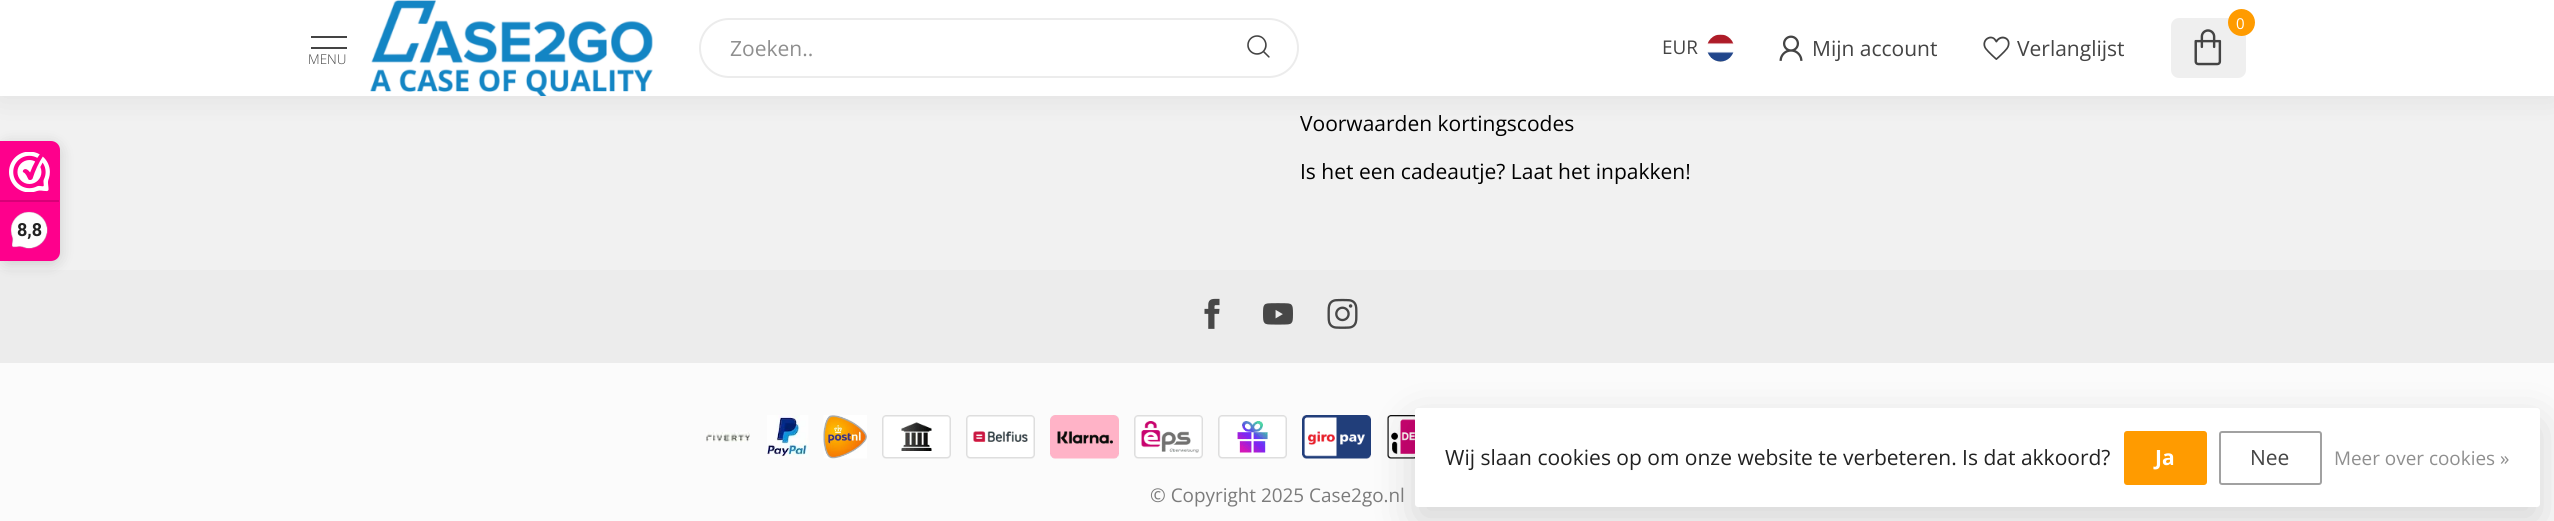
#include <cairo/cairo.h>
#include <math.h>
#include <stddef.h>

static cairo_t *cr;

static void use_color(int r, int g, int b) {
  cairo_set_source_rgb(cr, r / 255.0, g / 255.0, b / 255.0);
}

static void text(double x, double y, const char *s, const char *family, double size, int italic, int bold, int r, int g, int b) {
  cairo_select_font_face(cr, family, italic ? CAIRO_FONT_SLANT_ITALIC : CAIRO_FONT_SLANT_NORMAL,
    bold ? CAIRO_FONT_WEIGHT_BOLD : CAIRO_FONT_WEIGHT_NORMAL);
  cairo_set_font_size(cr, size);
  use_color(r, g, b);
  cairo_move_to(cr, x, y);
  cairo_show_text(cr, s);
}

static void box(double x, double y, double w, double h, int r, int g, int b) {
  use_color(r, g, b);
  cairo_rectangle(cr, x, y, w, h);
  cairo_fill(cr);
}

static void round_rect(double x, double y, double w, double h, double r) {
  cairo_new_sub_path(cr);
  cairo_arc(cr, x + w - r, y + h - r, r, 0, M_PI / 2);
  cairo_arc(cr, x + r, y + h - r, r, M_PI / 2, M_PI);
  cairo_arc(cr, x + r, y + r, r, M_PI, 1.5 * M_PI);
  cairo_arc(cr, x + w - r, y + r, r, 1.5 * M_PI, 2 * M_PI);
  cairo_close_path(cr);
}

static void shadow(double x, double y, double w, double h, double r, double blur, double alpha) {
  cairo_push_group_with_content(cr, CAIRO_CONTENT_ALPHA);
  cairo_set_operator(cr, CAIRO_OPERATOR_SOURCE);
  for (int i = 15; i >= -15 && fmin(w, h) + blur * i / 3 > 0; i -= 2) {
    double e = blur * i / 6;
    cairo_set_source_rgba(cr, 0, 0, 0, alpha * erfc((i - 1) / 8.5) / 2);
    round_rect(x - e, y - e, w + 2 * e, h + 2 * e, fmax(0, fmin(r + e + blur * .6, fmin(w, h) / 2 + e)));
    cairo_fill(cr);
  }
  cairo_pattern_t *soft = cairo_pop_group(cr);
  cairo_mask(cr, soft);
  cairo_pattern_destroy(soft);
}

static void picture(const char *path, double x, double y, double w, double h) {
  cairo_surface_t *image = cairo_image_surface_create_from_png(path);
  cairo_save(cr);
  cairo_set_source_surface(cr, image, x, y);
  cairo_rectangle(cr, x, y, w, h);
  cairo_fill(cr);
  cairo_restore(cr);
  cairo_surface_destroy(image);
}

static void draw(void) {
  use_color(241, 241, 241);
  cairo_paint(cr);
  use_color(0, 0, 0);
  shadow(0, -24, 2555, 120, 0, 16.5, 0.08);
  box(0, 0, 2554, 96, 255, 255, 255);
  picture("img_01.png", 370, 0, 283, 96);
  round_rect(700, 19, 598, 58, 29);
  use_color(236, 236, 236);
  cairo_stroke(cr);
  picture("img_02.png", 1247, 35, 23, 23);
  box(311, 36, 36, 2, 68, 68, 68);
  box(311, 47, 36, 2, 68, 68, 68);
  use_color(239, 239, 239);
  round_rect(2171, 18, 75, 60, 8);
  cairo_fill(cr);
  use_color(255, 155, 0);
  cairo_arc(cr, 2241.5, 22.5, 13.5, 0, 2 * M_PI);
  cairo_fill(cr);
  picture("img_03.png", 2194, 29, 28, 37);
  picture("img_04.png", 1707, 34, 27, 28);
  picture("img_05.png", 1779, 35, 24, 26);
  picture("img_06.png", 1983, 36, 27, 24);
  box(0, 270, 2554, 93, 236, 236, 236);
  picture("img_07.png", 1204, 298, 16, 31);
  picture("img_08.png", 1263, 303, 30, 22);
  picture("img_09.png", 1327, 298, 31, 31);
  use_color(0, 0, 0);
  shadow(0, 144, 60, 120, 9, 7.5, 0.15);
  use_color(254, 0, 140);
  cairo_new_path(cr);
  cairo_move_to(cr, 0, 141);
  cairo_line_to(cr, 51, 141);
  cairo_curve_to(cr, 56, 141, 60, 145, 60, 150);
  cairo_line_to(cr, 60, 252);
  cairo_curve_to(cr, 60, 257, 56, 261, 51, 261);
  cairo_line_to(cr, 0, 261);
  cairo_close_path(cr);
  cairo_fill(cr);
  picture("img_10.png", 9, 152, 41, 40);
  box(0, 200, 59, 2, 216, 0, 119);
  picture("img_11.png", 10, 211, 38, 38);
  box(0, 363, 2554, 158, 251, 251, 251);
  picture("img_20.png", 1302, 415, 69, 44);
  picture("img_21.png", 1387, 415, 28, 44);
  use_color(0, 0, 0);
  shadow(1415, 423, 1125, 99, 3, 22.5, 0.15);
  use_color(255, 255, 255);
  round_rect(1415, 408, 1125, 99, 3);
  cairo_fill(cr);
  use_color(255, 155, 0);
  round_rect(2124, 431, 83, 54, 3);
  cairo_fill(cr);
  round_rect(2220, 432, 101, 52, 2);
  use_color(161, 161, 161);
  cairo_stroke(cr);
  picture("img_12.png", 706, 432, 44, 10);
  picture("img_13.png", 767, 415, 42, 42);
  picture("img_14.png", 823, 415, 44, 44);
  picture("img_15.png", 882, 415, 69, 44);
  picture("img_16.png", 966, 415, 69, 44);
  picture("img_17.png", 1050, 415, 69, 44);
  picture("img_18.png", 1134, 415, 69, 44);
  picture("img_19.png", 1218, 415, 69, 44);
  text(730, 56, "Zoeken..", "Open Sans", 21, 0, 0, 143, 143, 143);
  text(308, 64, "MENU", "Open Sans Light", 13.5, 0, 0, 68, 68, 68);
  text(2236, 29, "0", "Open Sans", 15, 0, 0, 255, 255, 255);
  text(1662, 54, "EUR", "Open Sans", 18.9, 0, 0, 68, 68, 68);
  text(1812, 56, "Mijn account", "Open Sans", 21, 0, 0, 68, 68, 68);
  text(2017, 56, "Verlanglijst", "Open Sans", 21, 0, 0, 68, 68, 68);
  text(1300, 131, "Voorwaarden kortingscodes", "Open Sans", 21, 0, 0, 0, 0, 0);
  text(1300, 179, "Is het een cadeautje? Laat het inpakken!", "Open Sans", 21, 0, 0, 0, 0, 0);
  text(17, 236, "8,8", "Roboto", 18, 0, 1, 34, 34, 34);
  text(1445, 465, "Wij slaan cookies op om onze website te verbeteren. Is dat akkoord?", "Open Sans", 21, 0, 0, 34, 34, 34);
  text(2155, 465, "Ja", "Open Sans", 21, 0, 1, 255, 255, 255);
  text(2250, 465, "Nee", "Open Sans", 21, 0, 0, 68, 68, 68);
  text(2334, 465, "Meer over cookies »", "Open Sans", 18.9, 0, 0, 143, 143, 143);
  text(1150, 502, "© Copyright 2025 Case2go.nl", "Open Sans", 18.9, 0, 0, 123, 123, 123);
}

int main(void) {
  cairo_surface_t *surface = cairo_image_surface_create(CAIRO_FORMAT_RGB24, 2554, 521);
  cr = cairo_create(surface);
  cairo_font_options_t *options = cairo_font_options_create();
  cairo_font_options_set_hint_metrics(options, CAIRO_HINT_METRICS_OFF);
  cairo_font_options_set_hint_style(options, CAIRO_HINT_STYLE_NONE);
  cairo_set_font_options(cr, options);
  cairo_set_miter_limit(cr, 4);
  draw();
  cairo_surface_write_to_png(surface, "out.png");
  cairo_font_options_destroy(options);
  cairo_destroy(cr);
  cairo_surface_destroy(surface);
  return 0;
}
